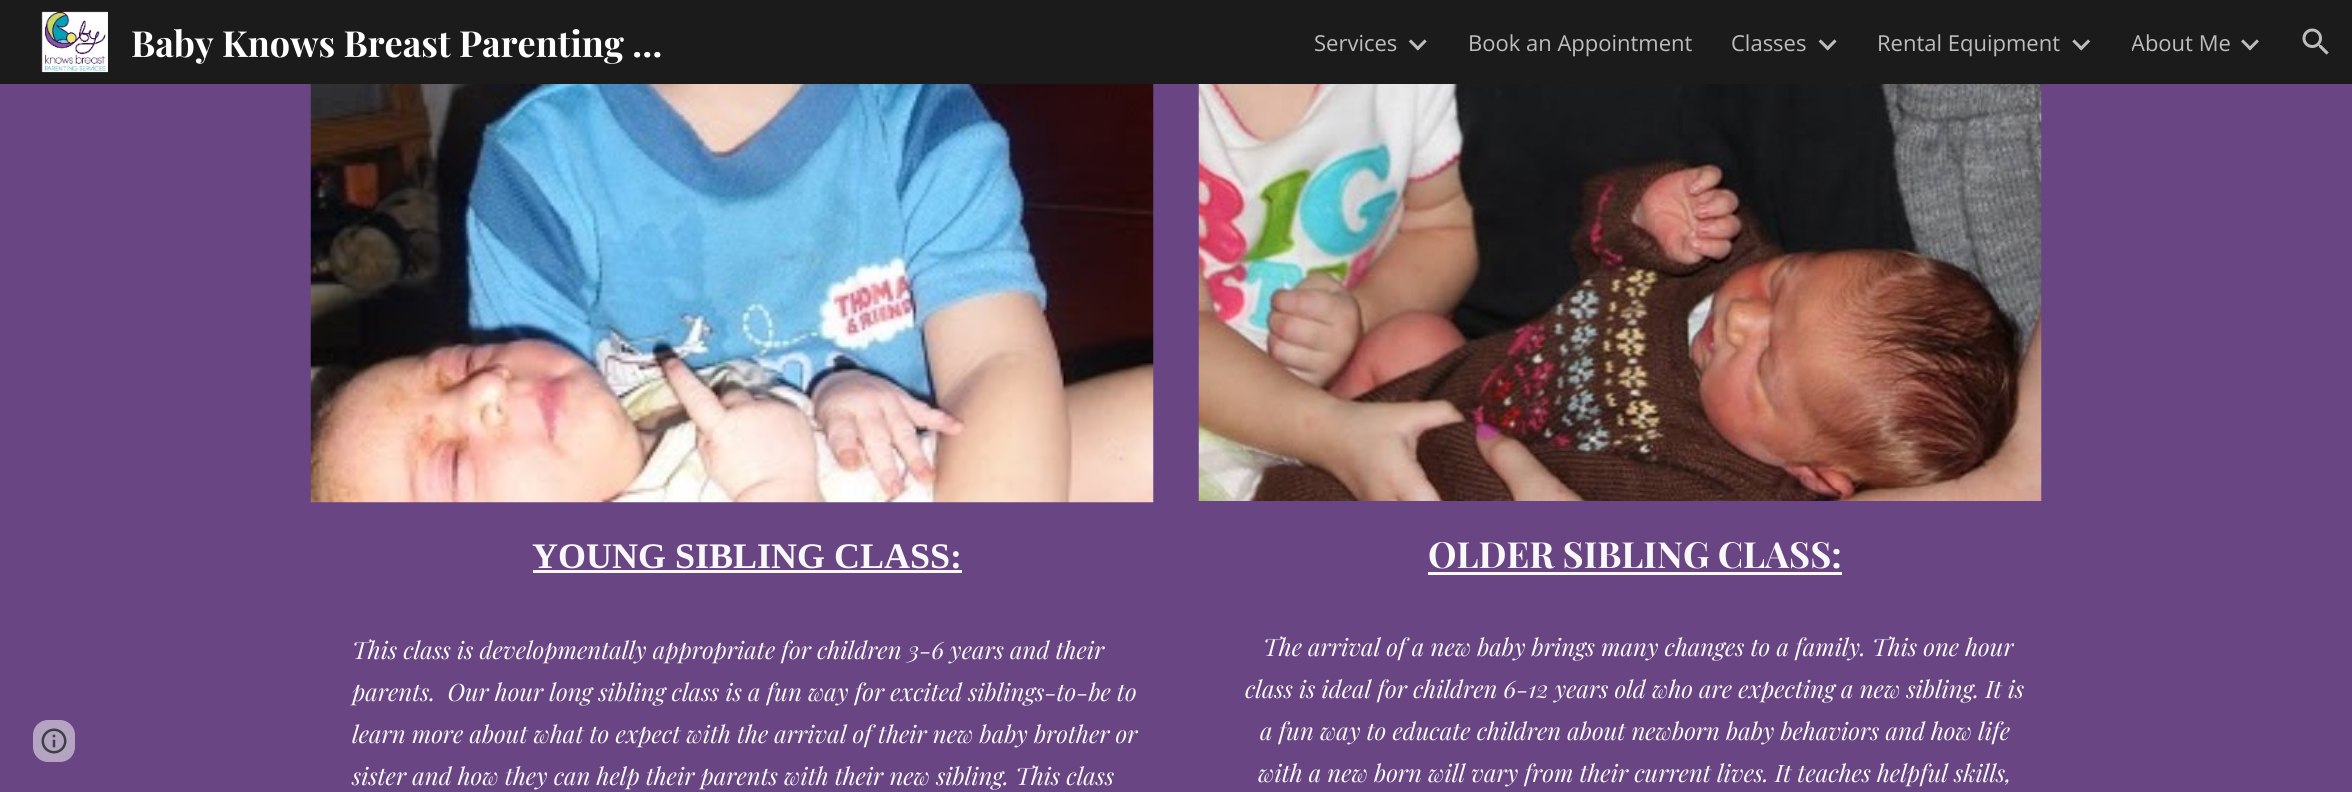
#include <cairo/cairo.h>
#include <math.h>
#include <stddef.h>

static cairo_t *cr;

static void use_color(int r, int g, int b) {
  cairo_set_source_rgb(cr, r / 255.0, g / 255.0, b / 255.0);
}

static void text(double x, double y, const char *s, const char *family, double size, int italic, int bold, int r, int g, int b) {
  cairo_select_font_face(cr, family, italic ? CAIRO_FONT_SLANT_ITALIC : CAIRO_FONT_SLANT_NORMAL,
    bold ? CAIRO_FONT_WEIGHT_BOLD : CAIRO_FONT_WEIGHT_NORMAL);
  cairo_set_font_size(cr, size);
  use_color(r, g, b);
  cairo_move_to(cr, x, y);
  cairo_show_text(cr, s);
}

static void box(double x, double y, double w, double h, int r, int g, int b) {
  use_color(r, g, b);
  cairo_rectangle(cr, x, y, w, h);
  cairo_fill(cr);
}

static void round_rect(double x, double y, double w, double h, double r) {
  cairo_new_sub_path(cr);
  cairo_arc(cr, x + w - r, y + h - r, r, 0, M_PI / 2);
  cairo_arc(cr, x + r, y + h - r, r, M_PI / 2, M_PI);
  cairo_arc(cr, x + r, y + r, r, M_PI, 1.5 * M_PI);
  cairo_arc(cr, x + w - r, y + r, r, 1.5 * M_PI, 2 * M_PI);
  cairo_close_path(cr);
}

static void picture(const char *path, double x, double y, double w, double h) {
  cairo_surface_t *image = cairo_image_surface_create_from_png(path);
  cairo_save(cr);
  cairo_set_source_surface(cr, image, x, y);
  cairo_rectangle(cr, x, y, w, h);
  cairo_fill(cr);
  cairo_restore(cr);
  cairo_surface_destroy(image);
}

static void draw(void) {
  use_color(105, 70, 131);
  cairo_paint(cr);
  box(0, 0, 2352, 84, 27, 27, 27);
  picture("img_01.png", 41, 11, 67, 62);
  picture("img_02.png", 1408, 39, 19, 12);
  picture("img_03.png", 1818, 39, 19, 12);
  picture("img_04.png", 2072, 39, 19, 12);
  picture("img_05.png", 2241, 39, 18, 12);
  picture("img_06.png", 2302, 28, 27, 27);
  use_color(180, 163, 193);
  round_rect(33, 720, 42, 42, 15);
  cairo_fill(cr);
  picture("img_07.png", 41, 728, 26, 26);
  picture("img_08.png", 310, 84, 844, 419);
  box(533, 570, 429, 3, 248, 248, 248);
  picture("img_09.png", 1198, 84, 844, 417);
  box(1428, 572, 414, 3, 248, 248, 248);
  text(131, 57, "Baby Knows Breast Parenting …", "Playfair Display", 36, 0, 1, 255, 255, 255);
  text(1314, 51, "Services", "Open Sans", 22, 0, 0, 189, 189, 189);
  text(1468, 51, "Book an Appointment", "Open Sans", 22, 0, 0, 189, 189, 189);
  text(1731, 51, "Classes", "Open Sans", 22, 0, 0, 189, 189, 189);
  text(1877, 51, "Rental Equipment", "Open Sans", 22, 0, 0, 189, 189, 189);
  cairo_save(cr);
  cairo_rectangle(cr, 2132, 27, 99, 30);
  cairo_clip(cr);
  text(2131, 51, "About Me", "Open Sans", 22, 0, 0, 189, 189, 189);
  cairo_restore(cr);
  text(532, 568, "YOUNG SIBLING CLASS:", "Liberation Serif", 36, 0, 1, 248, 248, 248);
  text(352, 659, "This class is developmentally appropriate for children 3-6 years and their", "Playfair Display", 24, 1, 0, 248, 248, 248);
  text(352, 701, "parents.  Our hour long sibling class is a fun way for excited siblings-to-be to", "Playfair Display", 24, 1, 0, 248, 248, 248);
  text(352, 743, "learn more about what to expect with the arrival of their new baby brother or", "Playfair Display", 24, 1, 0, 248, 248, 248);
  text(352, 785, "sister and how they can help their parents with their new sibling. This class", "Playfair Display", 24, 1, 0, 248, 248, 248);
  text(1428, 568, "OLDER SIBLING CLASS:", "Playfair Display", 36, 0, 1, 248, 248, 248);
  text(1263, 656, "The arrival of a new baby brings many changes to a family. This one hour", "Playfair Display", 24, 1, 0, 248, 248, 248);
  text(1245, 698, "class is ideal for children 6-12 years old who are expecting a new sibling. It is", "Playfair Display", 24, 1, 0, 248, 248, 248);
  text(1260, 740, "a fun way to educate children about newborn baby behaviors and how life", "Playfair Display", 24, 1, 0, 248, 248, 248);
  text(1258, 782, "with a new born will vary from their current lives. It teaches helpful skills,", "Playfair Display", 24, 1, 0, 248, 248, 248);
}

int main(void) {
  cairo_surface_t *surface = cairo_image_surface_create(CAIRO_FORMAT_RGB24, 2352, 792);
  cr = cairo_create(surface);
  cairo_font_options_t *options = cairo_font_options_create();
  cairo_font_options_set_hint_metrics(options, CAIRO_HINT_METRICS_OFF);
  cairo_font_options_set_hint_style(options, CAIRO_HINT_STYLE_NONE);
  cairo_set_font_options(cr, options);
  cairo_set_miter_limit(cr, 4);
  draw();
  cairo_surface_write_to_png(surface, "out.png");
  cairo_font_options_destroy(options);
  cairo_destroy(cr);
  cairo_surface_destroy(surface);
  return 0;
}
